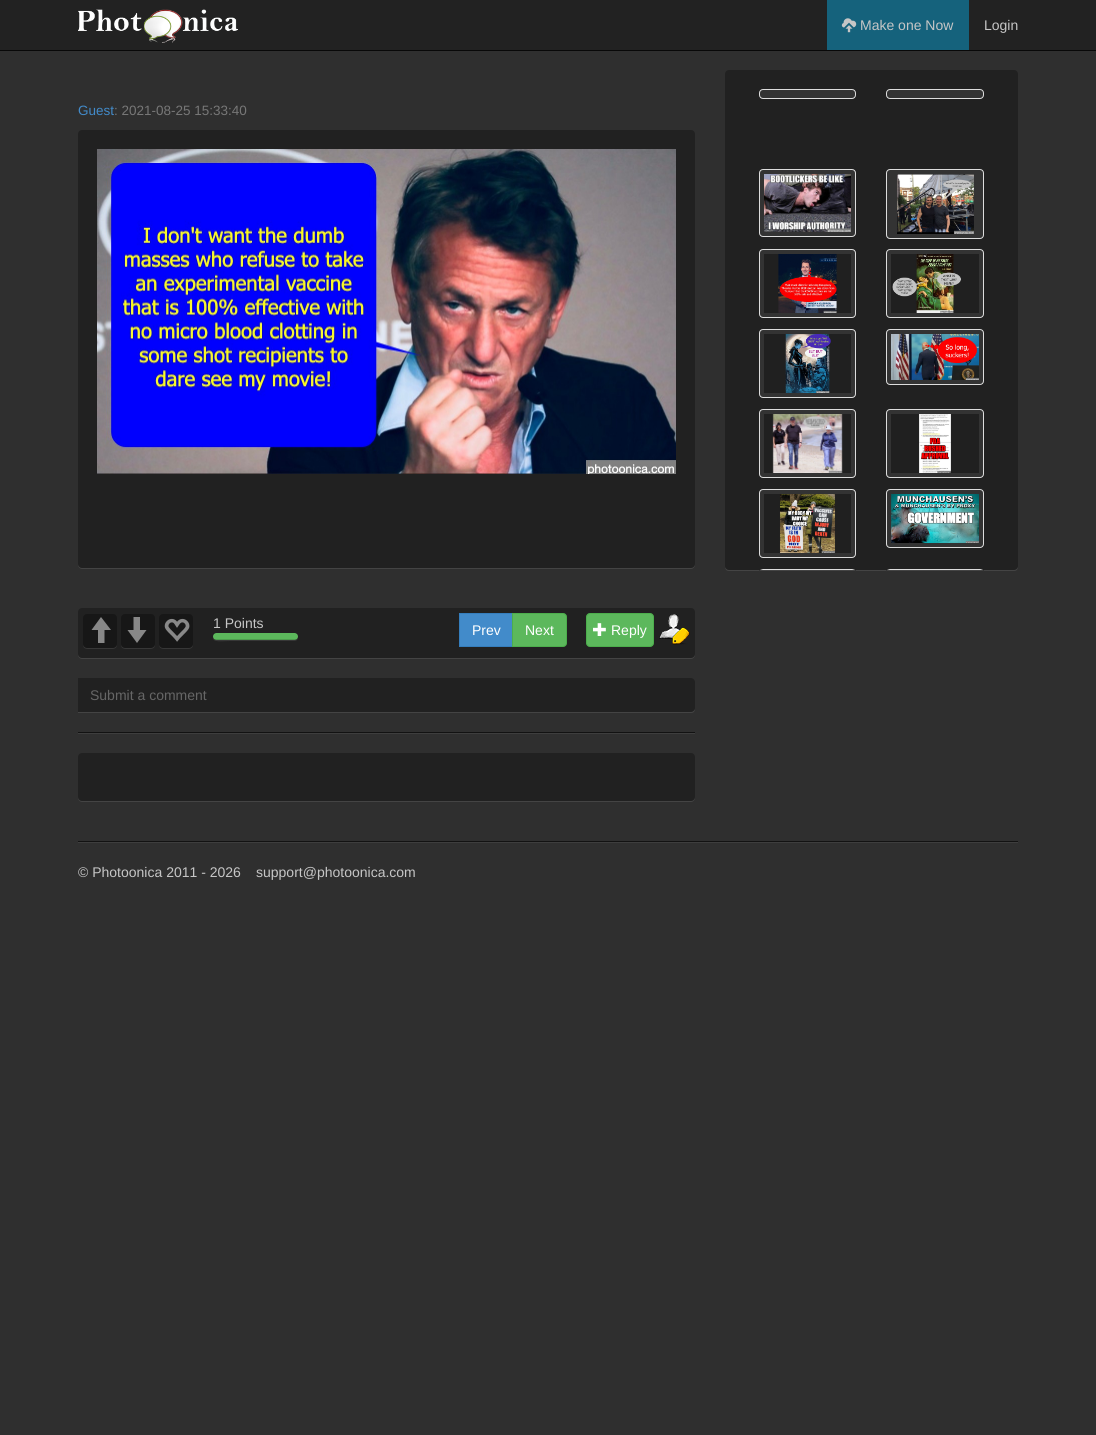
#include <cairo/cairo.h>
#include <math.h>
#include <stddef.h>

static cairo_t *cr;

static void use_color(int r, int g, int b) {
  cairo_set_source_rgb(cr, r / 255.0, g / 255.0, b / 255.0);
}

static void text(double x, double y, const char *s, const char *family, double size, int italic, int bold, int r, int g, int b) {
  cairo_select_font_face(cr, family, italic ? CAIRO_FONT_SLANT_ITALIC : CAIRO_FONT_SLANT_NORMAL,
    bold ? CAIRO_FONT_WEIGHT_BOLD : CAIRO_FONT_WEIGHT_NORMAL);
  cairo_set_font_size(cr, size);
  use_color(r, g, b);
  cairo_move_to(cr, x, y);
  cairo_show_text(cr, s);
}

static void box(double x, double y, double w, double h, int r, int g, int b) {
  use_color(r, g, b);
  cairo_rectangle(cr, x, y, w, h);
  cairo_fill(cr);
}

static void round_rect(double x, double y, double w, double h, double r) {
  cairo_new_sub_path(cr);
  cairo_arc(cr, x + w - r, y + h - r, r, 0, M_PI / 2);
  cairo_arc(cr, x + r, y + h - r, r, M_PI / 2, M_PI);
  cairo_arc(cr, x + r, y + r, r, M_PI, 1.5 * M_PI);
  cairo_arc(cr, x + w - r, y + r, r, 1.5 * M_PI, 2 * M_PI);
  cairo_close_path(cr);
}

static void picture(const char *path, double x, double y, double w, double h) {
  cairo_surface_t *image = cairo_image_surface_create_from_png(path);
  cairo_save(cr);
  cairo_set_source_surface(cr, image, x, y);
  cairo_rectangle(cr, x, y, w, h);
  cairo_fill(cr);
  cairo_restore(cr);
  cairo_surface_destroy(image);
}

static void draw(void) {
  use_color(47, 47, 47);
  cairo_paint(cr);
  box(0, 0, 1096, 50, 34, 34, 34);
  box(0, 50, 1096, 1, 8, 8, 8);
  picture("img_01.png", 78, 9, 160, 34);
  box(827, 0, 142, 50, 21, 98, 124);
  picture("img_02.png", 841, 18, 16, 15);
  use_color(68, 68, 68);
  cairo_new_path(cr);
  cairo_move_to(cr, 78, 564);
  cairo_line_to(cr, 78, 565);
  cairo_curve_to(cr, 78, 567, 80, 569, 82, 569);
  cairo_line_to(cr, 691, 569);
  cairo_curve_to(cr, 693, 569, 695, 567, 695, 565);
  cairo_line_to(cr, 695, 564);
  cairo_curve_to(cr, 695, 566, 693, 568, 691, 568);
  cairo_line_to(cr, 82, 568);
  cairo_curve_to(cr, 80, 568, 78, 566, 78, 564);
  cairo_close_path(cr);
  cairo_fill(cr);
  cairo_set_source_rgba(cr, 0, 0, 0, 0.3);
  round_rect(78, 130, 617, 438, 4);
  cairo_fill(cr);
  picture("img_03.png", 97, 149, 579, 325);
  use_color(68, 68, 68);
  cairo_new_path(cr);
  cairo_move_to(cr, 78, 654);
  cairo_line_to(cr, 78, 655);
  cairo_curve_to(cr, 78, 657, 80, 659, 82, 659);
  cairo_line_to(cr, 691, 659);
  cairo_curve_to(cr, 693, 659, 695, 657, 695, 655);
  cairo_line_to(cr, 695, 654);
  cairo_curve_to(cr, 695, 656, 693, 658, 691, 658);
  cairo_line_to(cr, 82, 658);
  cairo_curve_to(cr, 80, 658, 78, 656, 78, 654);
  cairo_close_path(cr);
  cairo_fill(cr);
  cairo_set_source_rgba(cr, 0, 0, 0, 0.3);
  round_rect(78, 608, 617, 50, 4);
  cairo_fill(cr);
  use_color(55, 55, 55);
  cairo_new_path(cr);
  cairo_move_to(cr, 83, 644);
  cairo_curve_to(cr, 83, 649.5, 86.5, 649, 91.5, 649);
  cairo_line_to(cr, 108.5, 649);
  cairo_curve_to(cr, 113.5, 649, 117, 649.5, 117, 644);
  cairo_curve_to(cr, 117, 646, 115, 648, 113, 648);
  cairo_line_to(cr, 87, 648);
  cairo_curve_to(cr, 85, 648, 83, 646, 83, 644);
  cairo_close_path(cr);
  cairo_fill(cr);
  cairo_set_source_rgba(cr, 0, 0, 0, 0.3);
  round_rect(83, 614, 34, 34, 4);
  cairo_fill(cr);
  use_color(136, 136, 136);
  cairo_new_path(cr);
  cairo_move_to(cr, 91.5, 630);
  cairo_line_to(cr, 101, 617);
  cairo_line_to(cr, 111, 630);
  cairo_line_to(cr, 104.5, 630);
  cairo_line_to(cr, 104.5, 643);
  cairo_line_to(cr, 98, 643);
  cairo_line_to(cr, 98, 630);
  cairo_close_path(cr);
  cairo_fill(cr);
  use_color(55, 55, 55);
  cairo_new_path(cr);
  cairo_move_to(cr, 121, 644);
  cairo_curve_to(cr, 121, 649.5, 124.5, 649, 129.5, 649);
  cairo_line_to(cr, 146.5, 649);
  cairo_curve_to(cr, 151.5, 649, 155, 649.5, 155, 644);
  cairo_curve_to(cr, 155, 646, 153, 648, 151, 648);
  cairo_line_to(cr, 125, 648);
  cairo_curve_to(cr, 123, 648, 121, 646, 121, 644);
  cairo_close_path(cr);
  cairo_fill(cr);
  cairo_set_source_rgba(cr, 0, 0, 0, 0.3);
  round_rect(121, 614, 34, 34, 4);
  cairo_fill(cr);
  use_color(136, 136, 136);
  cairo_new_path(cr);
  cairo_move_to(cr, 127.5, 630);
  cairo_line_to(cr, 133.5, 630);
  cairo_line_to(cr, 133.5, 617);
  cairo_line_to(cr, 140, 617);
  cairo_line_to(cr, 140, 630);
  cairo_line_to(cr, 146.5, 630);
  cairo_line_to(cr, 137, 643);
  cairo_close_path(cr);
  cairo_fill(cr);
  use_color(55, 55, 55);
  cairo_new_path(cr);
  cairo_move_to(cr, 159, 644);
  cairo_curve_to(cr, 159, 649.5, 162.5, 649, 167.5, 649);
  cairo_line_to(cr, 184.5, 649);
  cairo_curve_to(cr, 189.5, 649, 193, 649.5, 193, 644);
  cairo_curve_to(cr, 193, 646, 191, 648, 189, 648);
  cairo_line_to(cr, 163, 648);
  cairo_curve_to(cr, 161, 648, 159, 646, 159, 644);
  cairo_close_path(cr);
  cairo_fill(cr);
  cairo_set_source_rgba(cr, 0, 0, 0, 0.3);
  round_rect(159, 614, 34, 34, 4);
  cairo_fill(cr);
  picture("img_04.png", 164, 618, 26, 24);
  use_color(66, 139, 202);
  cairo_rectangle(cr, 459.5, 613.5, 53, 33);
  cairo_fill_preserve(cr);
  use_color(53, 126, 189);
  cairo_set_line_width(cr, 1);
  cairo_stroke(cr);
  use_color(92, 184, 92);
  cairo_new_path(cr);
  cairo_move_to(cr, 512.5, 613.5);
  cairo_line_to(cr, 563, 613.5);
  cairo_curve_to(cr, 565, 613.5, 566.5, 615, 566.5, 617);
  cairo_line_to(cr, 566.5, 643);
  cairo_curve_to(cr, 566.5, 645, 565, 646.5, 563, 646.5);
  cairo_line_to(cr, 512.5, 646.5);
  cairo_close_path(cr);
  cairo_fill_preserve(cr);
  use_color(76, 174, 76);
  cairo_stroke(cr);
  use_color(92, 184, 92);
  round_rect(586.5, 613.5, 67, 33, 3.5);
  cairo_fill_preserve(cr);
  use_color(76, 174, 76);
  cairo_stroke(cr);
  picture("img_05.png", 593, 623, 13, 13);
  picture("img_06.png", 659, 614, 31, 31);
  use_color(55, 55, 55);
  cairo_new_path(cr);
  cairo_move_to(cr, 213, 637);
  cairo_curve_to(cr, 212, 643, 222, 641, 230, 641);
  cairo_line_to(cr, 294, 641);
  cairo_curve_to(cr, 297, 641, 298, 639, 298, 637);
  cairo_curve_to(cr, 298, 639, 296, 640, 294, 640);
  cairo_line_to(cr, 216, 640);
  cairo_curve_to(cr, 215, 640, 213, 639, 213, 637);
  cairo_close_path(cr);
  cairo_fill(cr);
  use_color(92, 184, 92);
  round_rect(213, 633, 85, 7, 3.5);
  cairo_fill(cr);
  cairo_save(cr);
  round_rect(213, 633, 85, 7, 3.5);
  cairo_clip(cr);
  cairo_set_source_rgba(cr, 0, 0, 0, 0.15);
  cairo_rectangle(cr, 213, 639, 85, 1);
  cairo_fill(cr);
  cairo_restore(cr);
  use_color(68, 68, 68);
  cairo_new_path(cr);
  cairo_move_to(cr, 78, 712);
  cairo_line_to(cr, 78, 713);
  cairo_line_to(cr, 691, 713);
  cairo_curve_to(cr, 694, 713, 695, 711, 695, 708);
  cairo_curve_to(cr, 695, 710, 693, 712, 691, 712);
  cairo_close_path(cr);
  cairo_fill(cr);
  cairo_set_source_rgba(cr, 0, 0, 0, 0.3);
  cairo_new_path(cr);
  cairo_move_to(cr, 78, 678);
  cairo_line_to(cr, 691, 678);
  cairo_curve_to(cr, 693, 678, 695, 680, 695, 682);
  cairo_line_to(cr, 695, 708);
  cairo_curve_to(cr, 695, 710, 693, 712, 691, 712);
  cairo_line_to(cr, 78, 712);
  cairo_close_path(cr);
  cairo_fill(cr);
  box(78, 733, 617, 1, 62, 62, 62);
  box(78, 732, 617, 1, 18, 18, 18);
  use_color(68, 68, 68);
  cairo_new_path(cr);
  cairo_move_to(cr, 78, 797);
  cairo_line_to(cr, 78, 798);
  cairo_curve_to(cr, 78, 800, 80, 802, 82, 802);
  cairo_line_to(cr, 691, 802);
  cairo_curve_to(cr, 693, 802, 695, 800, 695, 798);
  cairo_line_to(cr, 695, 797);
  cairo_curve_to(cr, 695, 799, 693, 801, 691, 801);
  cairo_line_to(cr, 82, 801);
  cairo_curve_to(cr, 80, 801, 78, 799, 78, 797);
  cairo_close_path(cr);
  cairo_fill(cr);
  cairo_set_source_rgba(cr, 0, 0, 0, 0.3);
  round_rect(78, 753, 617, 48, 4);
  cairo_fill(cr);
  use_color(68, 68, 68);
  cairo_new_path(cr);
  cairo_move_to(cr, 725, 566);
  cairo_curve_to(cr, 725, 569, 726, 571, 729, 571);
  cairo_line_to(cr, 1014, 571);
  cairo_curve_to(cr, 1017, 571, 1018, 569, 1018, 566);
  cairo_curve_to(cr, 1018, 568, 1016, 570, 1014, 570);
  cairo_line_to(cr, 729, 570);
  cairo_curve_to(cr, 727, 570, 725, 568, 725, 566);
  cairo_close_path(cr);
  cairo_fill(cr);
  cairo_set_source_rgba(cr, 0, 0, 0, 0.3);
  round_rect(725, 70, 293, 500, 4);
  cairo_fill(cr);
  use_color(51, 51, 51);
  round_rect(759.5, 89.5, 96, 9, 3.5);
  cairo_fill_preserve(cr);
  use_color(221, 221, 221);
  cairo_stroke(cr);
  use_color(51, 51, 51);
  round_rect(886.5, 89.5, 97, 9, 3.5);
  cairo_fill_preserve(cr);
  use_color(221, 221, 221);
  cairo_stroke(cr);
  use_color(51, 51, 51);
  round_rect(759.5, 169.5, 96, 67, 3.5);
  cairo_fill_preserve(cr);
  use_color(221, 221, 221);
  cairo_stroke(cr);
  picture("img_07.png", 764, 174, 87, 58);
  use_color(51, 51, 51);
  round_rect(886.5, 169.5, 97, 69, 3.5);
  cairo_fill_preserve(cr);
  use_color(221, 221, 221);
  cairo_stroke(cr);
  picture("img_08.png", 897, 174, 77, 60);
  use_color(51, 51, 51);
  round_rect(759.5, 249.5, 96, 68, 3.5);
  cairo_fill_preserve(cr);
  use_color(221, 221, 221);
  cairo_stroke(cr);
  picture("img_09.png", 764, 254, 87, 59);
  use_color(51, 51, 51);
  round_rect(886.5, 249.5, 97, 68, 3.5);
  cairo_fill_preserve(cr);
  use_color(221, 221, 221);
  cairo_stroke(cr);
  picture("img_10.png", 891, 254, 88, 59);
  use_color(51, 51, 51);
  round_rect(759.5, 329.5, 96, 68, 3.5);
  cairo_fill_preserve(cr);
  use_color(221, 221, 221);
  cairo_stroke(cr);
  picture("img_11.png", 764, 334, 87, 59);
  use_color(51, 51, 51);
  round_rect(886.5, 329.5, 97, 55, 3.5);
  cairo_fill_preserve(cr);
  use_color(221, 221, 221);
  cairo_stroke(cr);
  picture("img_12.png", 891, 334, 88, 46);
  use_color(51, 51, 51);
  round_rect(759.5, 409.5, 96, 68, 3.5);
  cairo_fill_preserve(cr);
  use_color(221, 221, 221);
  cairo_stroke(cr);
  picture("img_13.png", 764, 414, 87, 59);
  use_color(51, 51, 51);
  round_rect(886.5, 409.5, 97, 68, 3.5);
  cairo_fill_preserve(cr);
  use_color(221, 221, 221);
  cairo_stroke(cr);
  picture("img_14.png", 891, 414, 88, 59);
  use_color(51, 51, 51);
  round_rect(759.5, 489.5, 96, 68, 3.5);
  cairo_fill_preserve(cr);
  use_color(221, 221, 221);
  cairo_stroke(cr);
  picture("img_15.png", 764, 494, 87, 59);
  use_color(51, 51, 51);
  round_rect(886.5, 489.5, 97, 58, 3.5);
  cairo_fill_preserve(cr);
  use_color(221, 221, 221);
  cairo_stroke(cr);
  picture("img_16.png", 891, 494, 88, 49);
  use_color(51, 51, 51);
  cairo_new_path(cr);
  cairo_move_to(cr, 763, 569);
  cairo_line_to(cr, 852, 569);
  cairo_curve_to(cr, 854, 569, 856, 571, 856, 573);
  cairo_line_to(cr, 856, 570);
  cairo_line_to(cr, 759, 570);
  cairo_line_to(cr, 759, 573);
  cairo_curve_to(cr, 759, 571, 761, 569, 763, 569);
  cairo_close_path(cr);
  cairo_fill(cr);
  use_color(221, 221, 221);
  cairo_new_path(cr);
  cairo_move_to(cr, 763, 569);
  cairo_line_to(cr, 760, 570);
  cairo_line_to(cr, 855, 570);
  cairo_line_to(cr, 852, 569);
  cairo_close_path(cr);
  cairo_fill(cr);
  use_color(51, 51, 51);
  cairo_new_path(cr);
  cairo_move_to(cr, 890, 569);
  cairo_line_to(cr, 980, 569);
  cairo_curve_to(cr, 982, 569, 984, 571, 984, 573);
  cairo_line_to(cr, 984, 570);
  cairo_line_to(cr, 886, 570);
  cairo_line_to(cr, 886, 573);
  cairo_curve_to(cr, 886, 571, 888, 569, 890, 569);
  cairo_close_path(cr);
  cairo_fill(cr);
  use_color(221, 221, 221);
  cairo_new_path(cr);
  cairo_move_to(cr, 890, 569);
  cairo_line_to(cr, 887, 570);
  cairo_line_to(cr, 983, 570);
  cairo_line_to(cr, 980, 569);
  cairo_close_path(cr);
  cairo_fill(cr);
  box(78, 842, 940, 1, 62, 62, 62);
  box(78, 841, 940, 1, 18, 18, 18);
  text(860, 30, "Make one Now", "Liberation Sans", 14, 0, 0, 198, 198, 198);
  text(984, 30, "Login", "Liberation Sans", 14, 0, 0, 198, 198, 198);
  text(78, 115, "Guest", "Liberation Sans", 13.5, 0, 0, 66, 139, 202);
  text(114, 115, ": 2021-08-25 15:33:40", "Liberation Sans", 13.5, 0, 0, 119, 119, 119);
  text(213, 628, "1 Points", "Liberation Sans", 14, 0, 0, 198, 198, 198);
  text(472, 635, "Prev", "Liberation Sans", 14, 0, 0, 255, 255, 255);
  text(525, 635, "Next", "Liberation Sans", 14, 0, 0, 255, 255, 255);
  text(611, 635, "Reply", "Liberation Sans", 14, 0, 0, 255, 255, 255);
  text(90, 700, "Submit a comment", "Liberation Sans", 14, 0, 0, 102, 102, 102);
  text(78, 877, "© Photoonica 2011 - 2026", "Liberation Sans", 14, 0, 0, 198, 198, 198);
  text(256, 877, "support@photoonica.com", "Liberation Sans", 14, 0, 0, 198, 198, 198);
}

int main(void) {
  cairo_surface_t *surface = cairo_image_surface_create(CAIRO_FORMAT_RGB24, 1096, 1435);
  cr = cairo_create(surface);
  cairo_font_options_t *options = cairo_font_options_create();
  cairo_font_options_set_hint_metrics(options, CAIRO_HINT_METRICS_OFF);
  cairo_font_options_set_hint_style(options, CAIRO_HINT_STYLE_NONE);
  cairo_set_font_options(cr, options);
  cairo_set_miter_limit(cr, 4);
  draw();
  cairo_surface_write_to_png(surface, "out.png");
  cairo_font_options_destroy(options);
  cairo_destroy(cr);
  cairo_surface_destroy(surface);
  return 0;
}
